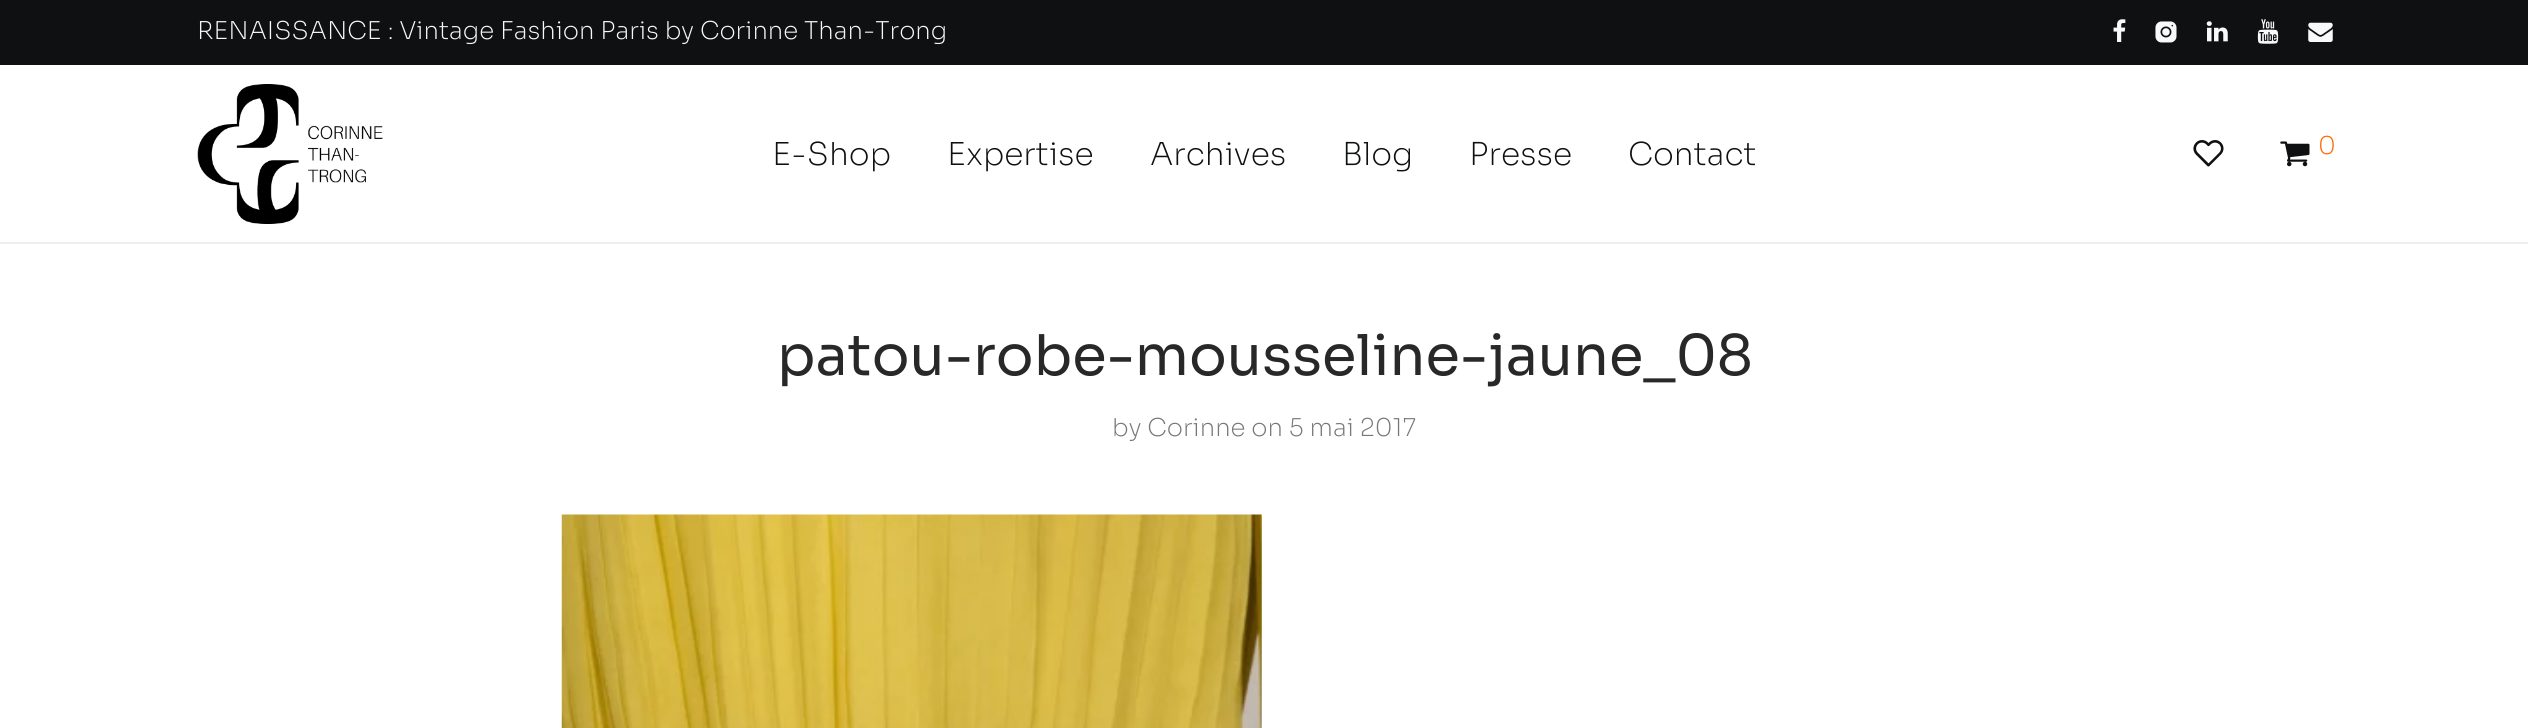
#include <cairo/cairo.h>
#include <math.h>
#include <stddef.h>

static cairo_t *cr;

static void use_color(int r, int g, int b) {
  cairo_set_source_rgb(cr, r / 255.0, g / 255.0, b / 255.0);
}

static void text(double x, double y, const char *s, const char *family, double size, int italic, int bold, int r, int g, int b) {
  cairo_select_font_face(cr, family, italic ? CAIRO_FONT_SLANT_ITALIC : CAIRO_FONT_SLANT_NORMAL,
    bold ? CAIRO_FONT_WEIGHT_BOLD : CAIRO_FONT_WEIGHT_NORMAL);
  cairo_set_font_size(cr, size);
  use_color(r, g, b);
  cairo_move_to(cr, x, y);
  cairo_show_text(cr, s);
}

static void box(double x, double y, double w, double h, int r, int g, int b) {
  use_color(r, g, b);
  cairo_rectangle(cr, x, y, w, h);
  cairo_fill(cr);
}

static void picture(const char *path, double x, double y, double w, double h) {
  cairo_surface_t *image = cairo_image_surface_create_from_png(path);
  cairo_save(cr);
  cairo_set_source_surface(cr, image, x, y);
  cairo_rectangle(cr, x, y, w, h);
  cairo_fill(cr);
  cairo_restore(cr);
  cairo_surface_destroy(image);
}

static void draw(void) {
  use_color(255, 255, 255);
  cairo_paint(cr);
  box(0, 0, 2528, 65, 15, 16, 17);
  picture("img_01.png", 2113, 19, 13, 23);
  picture("img_02.png", 2155, 21, 22, 22);
  picture("img_03.png", 2206, 21, 22, 21);
  picture("img_04.png", 2257, 19, 22, 25);
  picture("img_05.png", 2308, 22, 25, 20);
  box(0, 242, 2528, 2, 238, 238, 238);
  picture("img_06.png", 197, 84, 186, 140);
  picture("img_07.png", 2193, 140, 31, 27);
  picture("img_08.png", 2280, 141, 30, 26);
  picture("img_09.png", 561, 514, 701, 214);
  text(197, 39, "RENAISSANCE : Vintage Fashion Paris by Corinne Than-Trong", "Sora ExtraLight", 24.5, 0, 0, 249, 249, 249);
  text(772, 165, "E-Shop", "Sora ExtraLight", 31.5, 0, 0, 15, 16, 17);
  text(947, 165, "Expertise", "Sora ExtraLight", 31.5, 0, 0, 15, 16, 17);
  text(1150, 165, "Archives", "Sora ExtraLight", 31.5, 0, 0, 15, 16, 17);
  text(1342, 165, "Blog", "Sora ExtraLight", 31.5, 0, 0, 15, 16, 17);
  text(1469, 165, "Presse", "Sora ExtraLight", 31.5, 0, 0, 15, 16, 17);
  text(1628, 165, "Contact", "Sora ExtraLight", 31.5, 0, 0, 15, 16, 17);
  text(2318, 154, "0", "Sora ExtraLight", 24.5, 0, 0, 255, 104, 0);
  text(777, 375, "patou-robe-mousseline-jaune_08", "Sora", 56, 0, 0, 40, 40, 40);
  text(1112, 436, "by Corinne on 5 mai 2017", "Sora ExtraLight", 24.5, 0, 0, 119, 119, 119);
}

int main(void) {
  cairo_surface_t *surface = cairo_image_surface_create(CAIRO_FORMAT_RGB24, 2528, 728);
  cr = cairo_create(surface);
  cairo_font_options_t *options = cairo_font_options_create();
  cairo_font_options_set_hint_metrics(options, CAIRO_HINT_METRICS_OFF);
  cairo_font_options_set_hint_style(options, CAIRO_HINT_STYLE_NONE);
  cairo_set_font_options(cr, options);
  cairo_set_miter_limit(cr, 4);
  draw();
  cairo_surface_write_to_png(surface, "out.png");
  cairo_font_options_destroy(options);
  cairo_destroy(cr);
  cairo_surface_destroy(surface);
  return 0;
}
